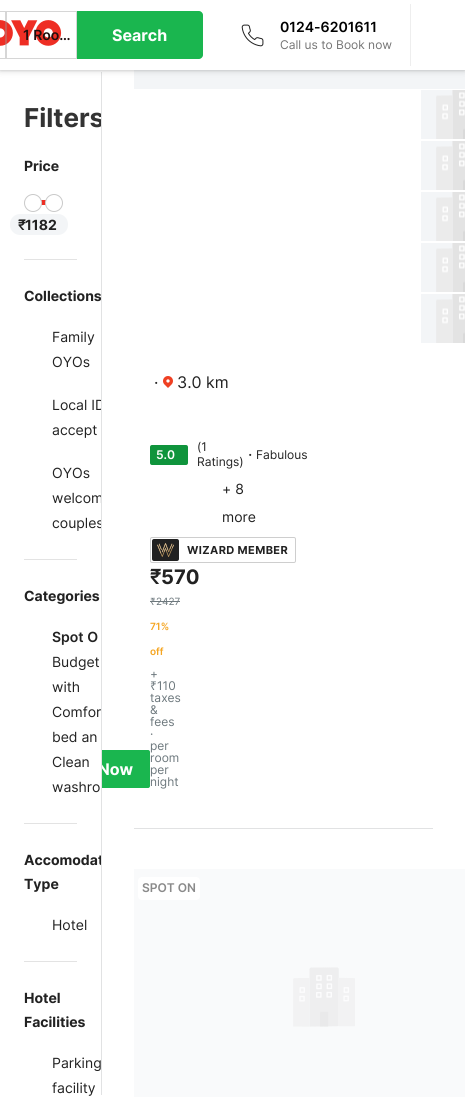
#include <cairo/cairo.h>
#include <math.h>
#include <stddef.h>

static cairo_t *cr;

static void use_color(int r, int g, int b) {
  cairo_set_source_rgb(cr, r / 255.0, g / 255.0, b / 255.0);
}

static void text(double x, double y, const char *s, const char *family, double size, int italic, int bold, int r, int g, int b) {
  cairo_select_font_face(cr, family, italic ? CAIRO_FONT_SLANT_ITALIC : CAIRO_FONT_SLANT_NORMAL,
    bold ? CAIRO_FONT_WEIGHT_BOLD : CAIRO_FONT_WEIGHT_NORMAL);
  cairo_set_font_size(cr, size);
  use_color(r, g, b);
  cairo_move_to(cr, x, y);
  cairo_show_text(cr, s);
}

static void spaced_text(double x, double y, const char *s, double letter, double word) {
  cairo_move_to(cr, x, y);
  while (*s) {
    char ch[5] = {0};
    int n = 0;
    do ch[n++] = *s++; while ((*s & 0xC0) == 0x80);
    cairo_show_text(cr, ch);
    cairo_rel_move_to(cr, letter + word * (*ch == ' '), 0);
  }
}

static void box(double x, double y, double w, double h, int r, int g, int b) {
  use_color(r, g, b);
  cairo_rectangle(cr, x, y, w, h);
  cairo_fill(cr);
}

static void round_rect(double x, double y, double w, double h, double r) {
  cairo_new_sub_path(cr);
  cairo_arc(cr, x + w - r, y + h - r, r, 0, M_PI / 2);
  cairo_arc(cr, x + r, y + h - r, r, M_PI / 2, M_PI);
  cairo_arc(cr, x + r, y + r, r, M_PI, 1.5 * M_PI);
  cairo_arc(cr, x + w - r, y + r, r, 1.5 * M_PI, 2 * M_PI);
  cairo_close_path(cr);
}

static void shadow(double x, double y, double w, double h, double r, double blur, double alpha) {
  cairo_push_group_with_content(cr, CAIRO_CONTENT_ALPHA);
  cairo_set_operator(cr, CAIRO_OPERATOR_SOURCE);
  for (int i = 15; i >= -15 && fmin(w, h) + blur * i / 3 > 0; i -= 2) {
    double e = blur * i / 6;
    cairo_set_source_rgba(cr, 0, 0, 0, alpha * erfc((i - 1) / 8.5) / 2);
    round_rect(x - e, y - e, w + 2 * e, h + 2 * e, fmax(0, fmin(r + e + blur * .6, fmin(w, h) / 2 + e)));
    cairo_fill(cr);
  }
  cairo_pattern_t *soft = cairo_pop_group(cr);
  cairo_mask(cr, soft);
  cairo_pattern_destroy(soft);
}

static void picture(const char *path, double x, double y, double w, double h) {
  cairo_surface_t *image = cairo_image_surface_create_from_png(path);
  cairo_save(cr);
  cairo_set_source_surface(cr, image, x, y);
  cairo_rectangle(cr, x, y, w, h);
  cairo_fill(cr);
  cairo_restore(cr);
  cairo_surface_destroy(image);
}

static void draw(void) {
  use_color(255, 255, 255);
  cairo_paint(cr);
  use_color(26, 182, 79);
  round_rect(38.5, 750.5, 111, 37, 1.5);
  cairo_fill_preserve(cr);
  cairo_set_line_width(cr, 1);
  cairo_stroke(cr);
  use_color(255, 255, 255);
  round_rect(0, 70, 102, 1027, 4);
  cairo_fill(cr);
  box(24, 259, 53, 1, 227, 227, 227);
  box(41, 200, 12, 5, 238, 46, 36);
  use_color(255, 255, 255);
  cairo_arc(cr, 33, 203, 8.5, 0, 2 * M_PI);
  cairo_fill_preserve(cr);
  use_color(201, 201, 201);
  cairo_stroke(cr);
  use_color(243, 245, 247);
  round_rect(16, 214, 52, 21, 10);
  cairo_fill(cr);
  use_color(255, 255, 255);
  cairo_arc(cr, 54, 203, 8.5, 0, 2 * M_PI);
  cairo_fill_preserve(cr);
  use_color(201, 201, 201);
  cairo_stroke(cr);
  use_color(243, 245, 247);
  round_rect(10, 214, 55, 21, 10);
  cairo_fill(cr);
  box(24, 559, 53, 1, 227, 227, 227);
  box(24, 823, 53, 1, 227, 227, 227);
  box(24, 961, 53, 1, 227, 227, 227);
  box(134, 70, 331, 19, 243, 245, 247);
  box(421, 90, 32, 49, 243, 245, 247);
  picture("img_03.png", 436, 90, 29, 49);
  box(421, 141, 32, 49, 243, 245, 247);
  picture("img_03.png", 436, 141, 29, 49);
  box(421, 192, 32, 49, 243, 245, 247);
  picture("img_03.png", 436, 192, 29, 49);
  box(421, 243, 32, 49, 243, 245, 247);
  picture("img_03.png", 436, 243, 29, 49);
  box(421, 294, 32, 49, 243, 245, 247);
  picture("img_03.png", 436, 294, 29, 49);
  picture("img_04.png", 163, 376, 10, 12);
  use_color(15, 148, 60);
  round_rect(150, 445, 38, 20, 2);
  cairo_fill(cr);
  round_rect(150.5, 537.5, 145, 25, 1.5);
  use_color(206, 206, 206);
  cairo_stroke(cr);
  use_color(33, 33, 33);
  round_rect(152, 539, 27, 22, 2);
  cairo_fill(cr);
  picture("img_05.png", 157, 543, 17, 14);
  box(150, 601, 30, 1, 109, 120, 125);
  box(134, 828, 299, 1, 225, 226, 227);
  box(134, 869, 331, 228, 249, 250, 251);
  picture("img_06.png", 293, 967, 62, 60);
  use_color(255, 255, 255);
  round_rect(138, 877, 62, 23, 4);
  cairo_fill(cr);
  cairo_save(cr);
  cairo_new_path(cr);
  cairo_move_to(cr, 4, 70);
  cairo_line_to(cr, 98, 70);
  cairo_curve_to(cr, 99.5, 70, 101, 72, 101, 74);
  cairo_line_to(cr, 101, 1093);
  cairo_curve_to(cr, 101, 1095, 99.5, 1097, 98, 1097);
  cairo_line_to(cr, 4, 1097);
  cairo_curve_to(cr, 2, 1097, 0, 1095, 0, 1093);
  cairo_line_to(cr, 0, 74);
  cairo_curve_to(cr, 0, 72, 2, 70, 4, 70);
  cairo_close_path(cr);
  cairo_clip(cr);
  text(24, 127, "Filters", "Inter", 26, 0, 1, 51, 51, 51);
  cairo_restore(cr);
  text(24, 171, "Price", "Inter", 14, 0, 1, 34, 34, 34);
  text(18, 230, "₹", "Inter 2", 14, 0, 1, 34, 34, 34);
  text(25, 230, "1182", "Inter", 14, 0, 1, 34, 34, 34);
  text(24, 301, "Collections", "Inter", 14, 0, 1, 34, 34, 34);
  text(52, 342, "Family", "Inter", 14, 0, 0, 34, 34, 34);
  text(52, 367, "OYOs", "Inter", 14, 0, 0, 34, 34, 34);
  cairo_save(cr);
  cairo_new_path(cr);
  cairo_move_to(cr, 4, 70);
  cairo_line_to(cr, 98, 70);
  cairo_curve_to(cr, 99.5, 70, 101, 72, 101, 74);
  cairo_line_to(cr, 101, 1093);
  cairo_curve_to(cr, 101, 1095, 99.5, 1097, 98, 1097);
  cairo_line_to(cr, 4, 1097);
  cairo_curve_to(cr, 2, 1097, 0, 1095, 0, 1093);
  cairo_line_to(cr, 0, 74);
  cairo_curve_to(cr, 0, 72, 2, 70, 4, 70);
  cairo_close_path(cr);
  cairo_clip(cr);
  text(52, 410, "Local ID", "Inter", 14, 0, 0, 34, 34, 34);
  cairo_restore(cr);
  text(52, 435, "accept", "Inter", 14, 0, 0, 34, 34, 34);
  text(52, 478, "OYOs", "Inter", 14, 0, 0, 34, 34, 34);
  cairo_save(cr);
  cairo_new_path(cr);
  cairo_move_to(cr, 4, 70);
  cairo_line_to(cr, 98, 70);
  cairo_curve_to(cr, 99.5, 70, 101, 72, 101, 74);
  cairo_line_to(cr, 101, 1093);
  cairo_curve_to(cr, 101, 1095, 99.5, 1097, 98, 1097);
  cairo_line_to(cr, 4, 1097);
  cairo_curve_to(cr, 2, 1097, 0, 1095, 0, 1093);
  cairo_line_to(cr, 0, 74);
  cairo_curve_to(cr, 0, 72, 2, 70, 4, 70);
  cairo_close_path(cr);
  cairo_clip(cr);
  text(52, 503, "welcom", "Inter", 14, 0, 0, 34, 34, 34);
  text(52, 528, "couples", "Inter", 14, 0, 0, 34, 34, 34);
  cairo_restore(cr);
  text(24, 601, "Categories", "Inter", 14, 0, 1, 34, 34, 34);
  text(52, 642, "Spot O", "Inter SemiBold", 14, 0, 0, 34, 34, 34);
  text(52, 667, "Budget", "Inter", 14, 0, 0, 34, 34, 34);
  text(52, 692, "with", "Inter", 14, 0, 0, 34, 34, 34);
  text(52, 717, "Comfor", "Inter", 14, 0, 0, 34, 34, 34);
  text(52, 742, "bed an", "Inter", 14, 0, 0, 34, 34, 34);
  text(52, 767, "Clean", "Inter", 14, 0, 0, 34, 34, 34);
  text(52, 792, "washro", "Inter", 14, 0, 0, 34, 34, 34);
  cairo_save(cr);
  cairo_new_path(cr);
  cairo_move_to(cr, 4, 70);
  cairo_line_to(cr, 98, 70);
  cairo_curve_to(cr, 99.5, 70, 101, 72, 101, 74);
  cairo_line_to(cr, 101, 1093);
  cairo_curve_to(cr, 101, 1095, 99.5, 1097, 98, 1097);
  cairo_line_to(cr, 4, 1097);
  cairo_curve_to(cr, 2, 1097, 0, 1095, 0, 1093);
  cairo_line_to(cr, 0, 74);
  cairo_curve_to(cr, 0, 72, 2, 70, 4, 70);
  cairo_close_path(cr);
  cairo_clip(cr);
  text(24, 865, "Accomodat", "Inter", 14, 0, 1, 34, 34, 34);
  cairo_restore(cr);
  text(24, 889, "Type", "Inter", 14, 0, 1, 34, 34, 34);
  text(52, 930, "Hotel", "Inter", 14, 0, 0, 34, 34, 34);
  text(24, 1003, "Hotel", "Inter", 14, 0, 1, 34, 34, 34);
  text(24, 1027, "Facilities", "Inter", 14, 0, 1, 34, 34, 34);
  text(52, 1068, "Parking", "Inter", 14, 0, 0, 34, 34, 34);
  text(52, 1093, "facility", "Inter", 14, 0, 0, 34, 34, 34);
  text(154, 388, "·", "Inter", 16, 0, 0, 34, 34, 34);
  text(177, 388, "3.0 km", "Inter", 16, 0, 0, 34, 34, 34);
  text(156, 459, "5.0", "Inter SemiBold", 12, 0, 0, 255, 255, 255);
  text(197, 451, "(1", "Inter", 12, 0, 0, 34, 34, 34);
  text(197, 466, "Ratings)", "Inter", 12, 0, 0, 34, 34, 34);
  text(248, 460, "·", "Inter", 16, 0, 0, 34, 34, 34);
  text(256, 459, "Fabulous", "Inter", 12, 0, 0, 34, 34, 34);
  text(222, 494, "+ 8", "Inter", 14, 0, 0, 34, 34, 34);
  text(222, 522, "more", "Inter", 14, 0, 0, 34, 34, 34);
  cairo_select_font_face(cr, "Inter", CAIRO_FONT_SLANT_NORMAL, CAIRO_FONT_WEIGHT_BOLD);
  cairo_set_font_size(cr, 11);
  spaced_text(187, 554, "WIZARD MEMBER", 0.4, 0);
  text(98, 775, "Now", "Inter", 16, 0, 1, 255, 255, 255);
  box(101, 72, 1, 1023, 225, 226, 227);
  use_color(0, 0, 0);
  shadow(0, 2, 465, 70, 0, 3, 0.1);
  shadow(0, 1, 465, 70, 0, 1, 0.1);
  box(0, 0, 465, 70, 255, 255, 255);
  picture("img_01.png", 0, 20, 62, 26);
  cairo_rectangle(cr, 6.5, 11.5, 70, 47);
  cairo_set_source_rgba(cr, 0.6, 0.6, 0.6, 0.4);
  cairo_stroke(cr);
  text(23, 40, "1 Roo…", "Inter SemiBold", 14, 0, 0, 32, 15, 14);
  cairo_rectangle(cr, -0.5, 11.5, 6, 47);
  cairo_set_source_rgba(cr, 0.6, 0.6, 0.6, 0.4);
  cairo_stroke(cr);
  picture("img_02.png", 241, 24, 23, 23);
  text(280, 49, "Call us to Book now", "Inter", 12, 0, 0, 117, 117, 117);
  text(280, 32, "0124-6201611", "Inter SemiBold", 14, 0, 0, 0, 0, 0);
  box(410, 4, 1, 62, 238, 238, 238);
  use_color(26, 182, 79);
  cairo_new_path(cr);
  cairo_move_to(cr, 77, 11);
  cairo_line_to(cr, 199, 11);
  cairo_curve_to(cr, 201, 11, 203, 13, 203, 15);
  cairo_line_to(cr, 203, 55);
  cairo_curve_to(cr, 203, 57, 201, 59, 199, 59);
  cairo_line_to(cr, 77, 59);
  cairo_close_path(cr);
  cairo_fill(cr);
  text(112, 41, "Search", "Inter", 16, 0, 1, 255, 255, 255);
  text(150, 584, "₹", "Inter 2", 20, 0, 1, 34, 34, 34);
  text(161, 584, "570", "Inter", 20, 0, 1, 34, 34, 34);
  text(150, 605, "₹", "Noto Sans", 10, 0, 0, 109, 120, 125);
  text(156, 605, "2427", "Inter", 10, 0, 0, 109, 120, 125);
  text(150, 630, "71%", "Inter SemiBold", 10, 0, 0, 245, 166, 35);
  text(150, 655, "off", "Inter SemiBold", 10, 0, 0, 245, 166, 35);
  text(150, 678, "+", "Inter", 12, 0, 0, 109, 120, 125);
  text(150, 690, "₹", "Noto Sans", 12, 0, 0, 109, 120, 125);
  text(157, 690, "110", "Inter", 12, 0, 0, 109, 120, 125);
  text(150, 702, "taxes", "Inter", 12, 0, 0, 109, 120, 125);
  text(150, 714, "&", "Inter", 12, 0, 0, 109, 120, 125);
  text(150, 726, "fees", "Inter", 12, 0, 0, 109, 120, 125);
  text(150, 738, "·", "Inter", 12, 0, 0, 109, 120, 125);
  text(150, 750, "per", "Inter", 12, 0, 0, 109, 120, 125);
  text(150, 762, "room", "Inter", 12, 0, 0, 109, 120, 125);
  text(150, 774, "per", "Inter", 12, 0, 0, 109, 120, 125);
  text(150, 786, "night", "Inter", 12, 0, 0, 109, 120, 125);
  text(142, 892, "SPOT ON", "Inter SemiBold", 12, 0, 0, 138, 138, 138);
}

int main(void) {
  cairo_surface_t *surface = cairo_image_surface_create(CAIRO_FORMAT_RGB24, 465, 1097);
  cr = cairo_create(surface);
  cairo_font_options_t *options = cairo_font_options_create();
  cairo_font_options_set_hint_metrics(options, CAIRO_HINT_METRICS_OFF);
  cairo_font_options_set_hint_style(options, CAIRO_HINT_STYLE_NONE);
  cairo_set_font_options(cr, options);
  cairo_set_miter_limit(cr, 4);
  draw();
  cairo_surface_write_to_png(surface, "out.png");
  cairo_font_options_destroy(options);
  cairo_destroy(cr);
  cairo_surface_destroy(surface);
  return 0;
}
